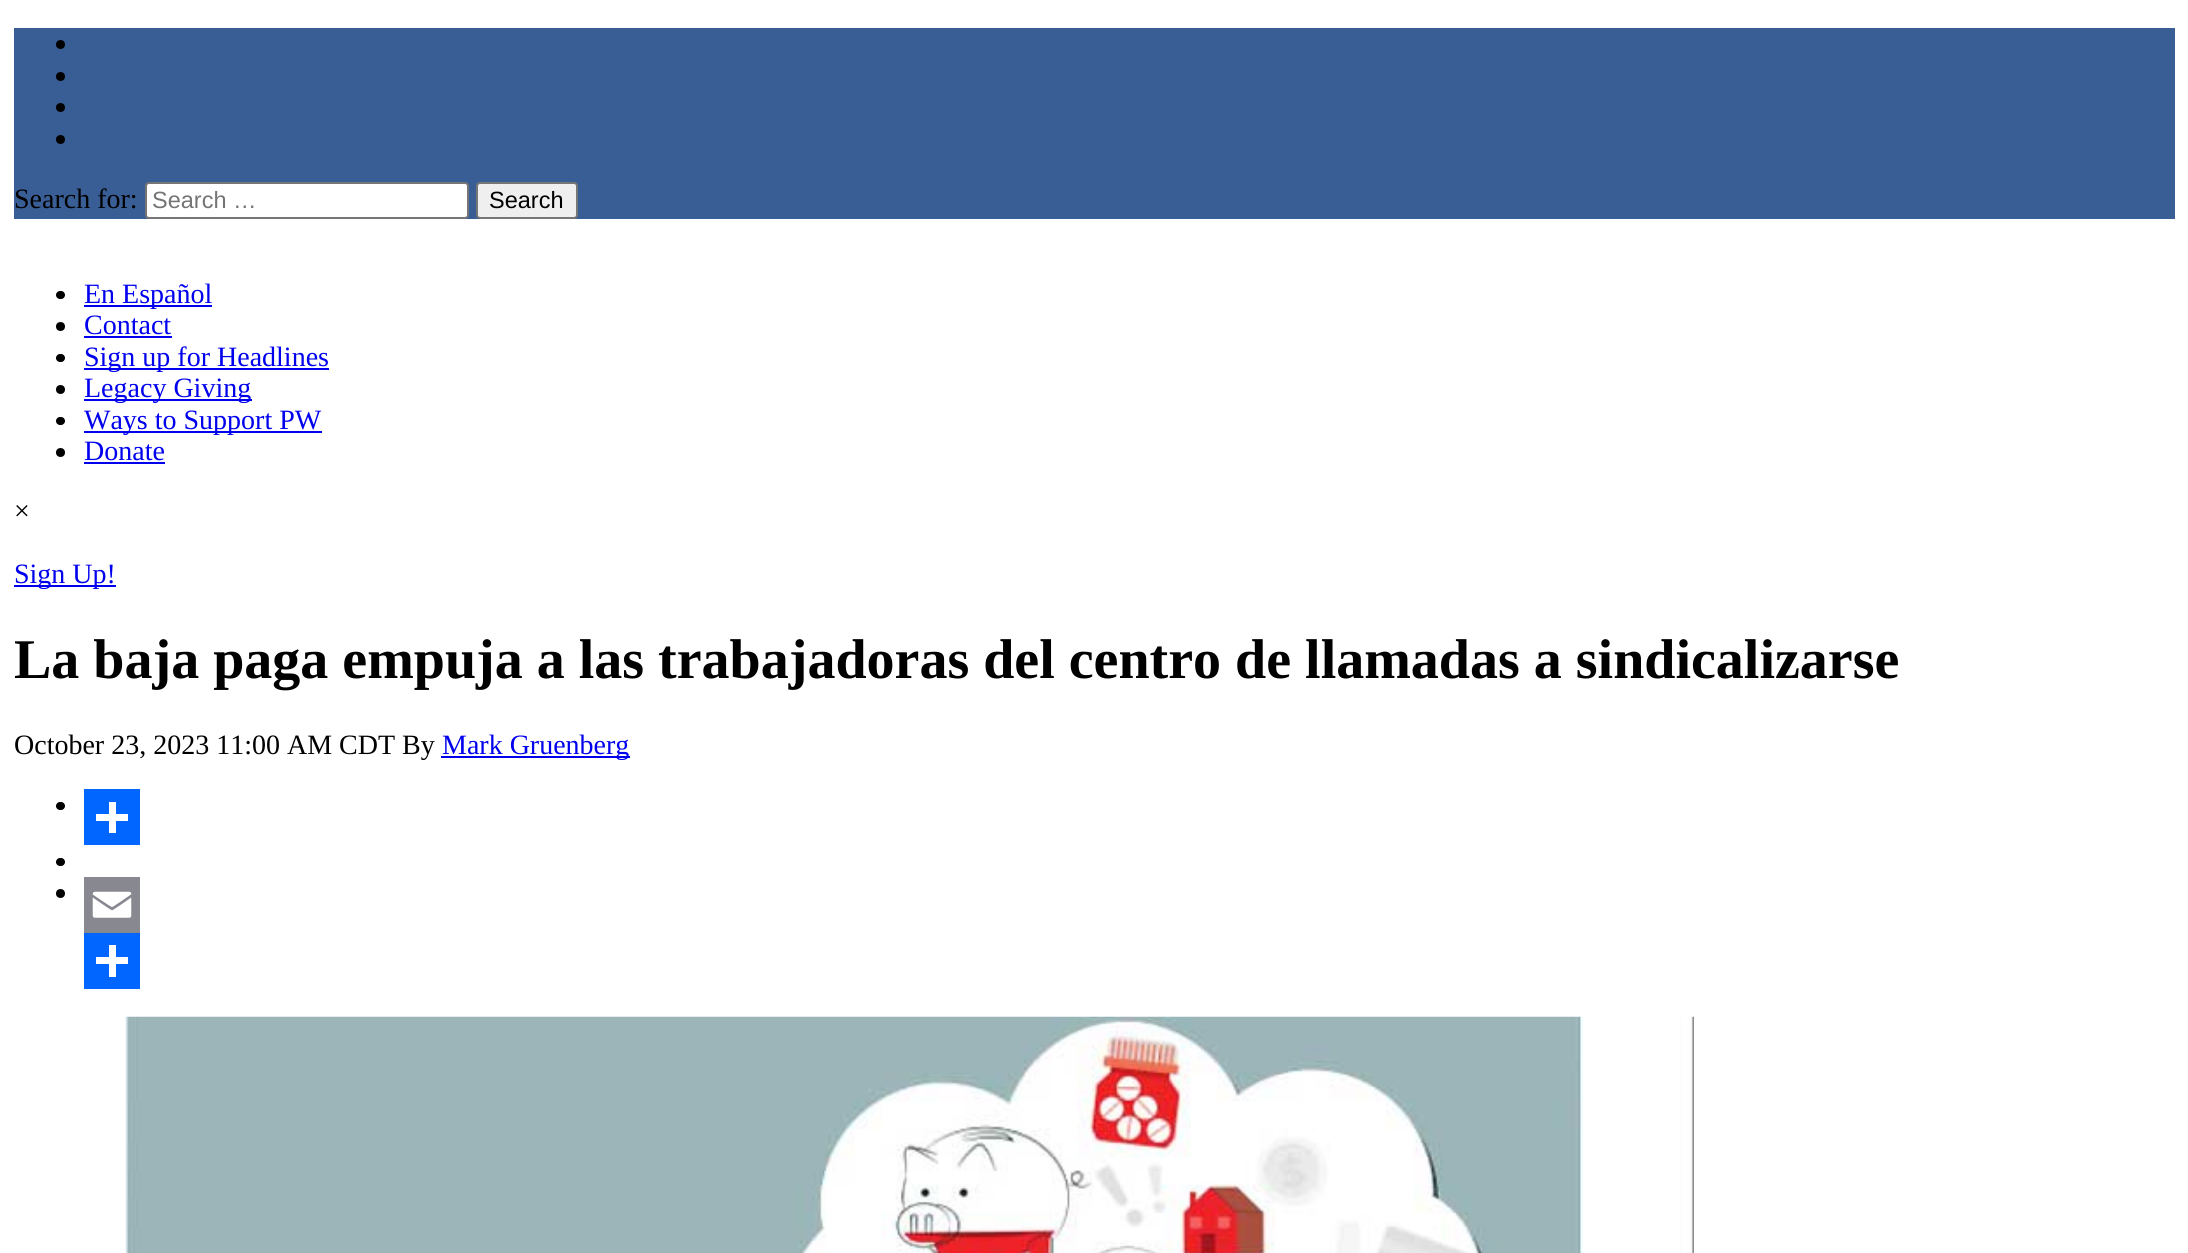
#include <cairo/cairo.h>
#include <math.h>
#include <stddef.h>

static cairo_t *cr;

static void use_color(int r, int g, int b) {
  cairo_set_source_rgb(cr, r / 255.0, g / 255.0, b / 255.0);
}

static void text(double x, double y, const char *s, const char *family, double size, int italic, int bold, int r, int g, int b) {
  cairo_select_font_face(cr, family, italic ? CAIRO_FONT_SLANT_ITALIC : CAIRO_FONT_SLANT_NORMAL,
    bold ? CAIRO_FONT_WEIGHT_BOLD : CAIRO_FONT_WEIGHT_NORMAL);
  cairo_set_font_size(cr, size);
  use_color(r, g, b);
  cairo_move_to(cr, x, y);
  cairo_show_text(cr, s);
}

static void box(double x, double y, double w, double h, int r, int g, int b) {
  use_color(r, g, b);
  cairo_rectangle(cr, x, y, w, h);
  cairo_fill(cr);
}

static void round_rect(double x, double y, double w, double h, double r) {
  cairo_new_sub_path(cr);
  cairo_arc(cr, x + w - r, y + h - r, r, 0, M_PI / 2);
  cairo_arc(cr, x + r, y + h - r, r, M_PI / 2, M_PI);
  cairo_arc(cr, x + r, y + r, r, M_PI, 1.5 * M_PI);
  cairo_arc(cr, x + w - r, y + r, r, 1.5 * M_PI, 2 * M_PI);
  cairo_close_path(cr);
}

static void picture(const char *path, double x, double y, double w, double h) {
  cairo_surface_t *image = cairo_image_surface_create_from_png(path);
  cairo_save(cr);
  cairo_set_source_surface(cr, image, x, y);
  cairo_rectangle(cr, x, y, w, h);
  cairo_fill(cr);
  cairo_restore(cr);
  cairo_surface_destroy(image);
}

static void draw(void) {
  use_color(255, 255, 255);
  cairo_paint(cr);
  box(14, 28, 2161, 191, 57, 94, 149);
  use_color(0, 0, 0);
  cairo_arc(cr, 60.5, 44.5, 4.5, 0, 2 * M_PI);
  cairo_fill(cr);
  cairo_arc(cr, 60.5, 76.5, 4.5, 0, 2 * M_PI);
  cairo_fill(cr);
  cairo_arc(cr, 60.5, 107.5, 4.5, 0, 2 * M_PI);
  cairo_fill(cr);
  cairo_arc(cr, 60.5, 139.5, 4.5, 0, 2 * M_PI);
  cairo_fill(cr);
  use_color(255, 255, 255);
  round_rect(146, 183, 322, 35, 3);
  cairo_fill_preserve(cr);
  use_color(118, 118, 118);
  cairo_stroke(cr);
  use_color(239, 239, 239);
  round_rect(477, 183, 100, 35, 3);
  cairo_fill_preserve(cr);
  use_color(118, 118, 118);
  cairo_stroke(cr);
  use_color(0, 0, 0);
  round_rect(56, 291, 9, 8, 4);
  cairo_fill(cr);
  box(84, 305, 128, 2, 0, 0, 238);
  use_color(0, 0, 0);
  cairo_arc(cr, 60.5, 326.5, 4.5, 0, 2 * M_PI);
  cairo_fill(cr);
  box(84, 336, 88, 2, 0, 0, 238);
  use_color(0, 0, 0);
  round_rect(56, 354, 9, 8, 4);
  cairo_fill(cr);
  box(84, 368, 245, 2, 0, 0, 238);
  use_color(0, 0, 0);
  cairo_arc(cr, 60.5, 389.5, 4.5, 0, 2 * M_PI);
  cairo_fill(cr);
  box(84, 399, 168, 2, 0, 0, 238);
  use_color(0, 0, 0);
  round_rect(56, 417, 9, 8, 4);
  cairo_fill(cr);
  box(84, 431, 238, 2, 0, 0, 238);
  use_color(0, 0, 0);
  cairo_arc(cr, 60.5, 452.5, 4.5, 0, 2 * M_PI);
  cairo_fill(cr);
  box(84, 462, 81, 2, 0, 0, 238);
  box(14, 585, 102, 2, 0, 0, 238);
  box(441, 756, 189, 2, 0, 0, 238);
  use_color(0, 0, 0);
  round_rect(56, 802, 9, 8, 4);
  cairo_fill(cr);
  box(84, 789, 56, 56, 1, 102, 255);
  box(109, 802, 7, 31, 255, 255, 255);
  box(96, 814, 32, 7, 255, 255, 255);
  use_color(0, 0, 0);
  round_rect(56, 858, 9, 8, 4);
  cairo_fill(cr);
  cairo_arc(cr, 60.5, 893.5, 4.5, 0, 2 * M_PI);
  cairo_fill(cr);
  box(84, 877, 56, 56, 136, 137, 144);
  picture("img_01.png", 92, 891, 40, 27);
  box(84, 933, 56, 56, 1, 102, 255);
  box(109, 945, 7, 32, 255, 255, 255);
  box(96, 957, 32, 7, 255, 255, 255);
  picture("img_02.png", 125, 1016, 1569, 237);
  text(14, 208, "Search for:", "Liberation Serif", 28, 0, 0, 0, 0, 0);
  text(152, 208, "Search …", "Liberation Sans", 23.5, 0, 0, 117, 117, 117);
  text(489, 208, "Search", "Liberation Sans", 23.5, 0, 0, 0, 0, 0);
  text(84, 303, "En Español", "Liberation Serif", 28, 0, 0, 0, 0, 238);
  text(84, 334, "Contact", "Liberation Serif", 28, 0, 0, 0, 0, 238);
  text(84, 366, "Sign up for Headlines", "Liberation Serif", 28, 0, 0, 0, 0, 238);
  text(84, 397, "Legacy Giving", "Liberation Serif", 28, 0, 0, 0, 0, 238);
  text(84, 429, "Ways to Support PW", "Liberation Serif", 28, 0, 0, 0, 0, 238);
  text(84, 460, "Donate", "Liberation Serif", 28, 0, 0, 0, 0, 238);
  text(14, 520, "×", "Liberation Serif", 28, 0, 0, 0, 0, 0);
  text(14, 583, "Sign Up!", "Liberation Serif", 28, 0, 0, 0, 0, 238);
  text(14, 678, "La baja paga empuja a las trabajadoras del centro de llamadas a sindicalizarse", "Liberation Serif", 56, 0, 1, 0, 0, 0);
  text(14, 754, "October 23, 2023 11:00 AM CDT By", "Liberation Serif", 28, 0, 0, 0, 0, 0);
  text(442, 754, "Mark Gruenberg", "Liberation Serif", 28, 0, 0, 0, 0, 238);
}

int main(void) {
  cairo_surface_t *surface = cairo_image_surface_create(CAIRO_FORMAT_RGB24, 2188, 1253);
  cr = cairo_create(surface);
  cairo_font_options_t *options = cairo_font_options_create();
  cairo_font_options_set_hint_metrics(options, CAIRO_HINT_METRICS_OFF);
  cairo_font_options_set_hint_style(options, CAIRO_HINT_STYLE_NONE);
  cairo_set_font_options(cr, options);
  cairo_set_miter_limit(cr, 4);
  draw();
  cairo_surface_write_to_png(surface, "out.png");
  cairo_font_options_destroy(options);
  cairo_destroy(cr);
  cairo_surface_destroy(surface);
  return 0;
}
